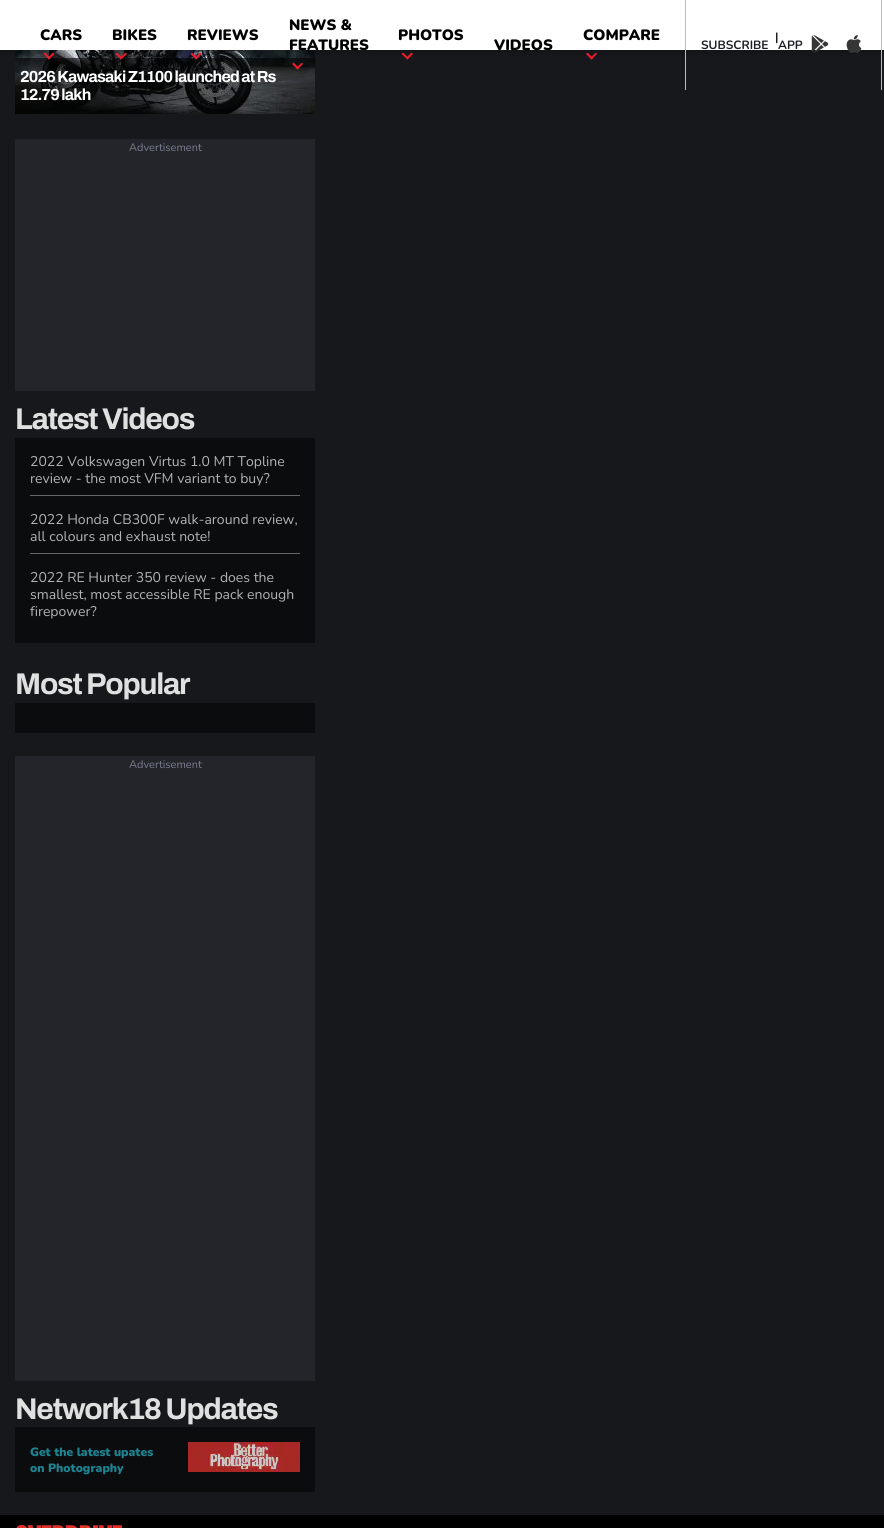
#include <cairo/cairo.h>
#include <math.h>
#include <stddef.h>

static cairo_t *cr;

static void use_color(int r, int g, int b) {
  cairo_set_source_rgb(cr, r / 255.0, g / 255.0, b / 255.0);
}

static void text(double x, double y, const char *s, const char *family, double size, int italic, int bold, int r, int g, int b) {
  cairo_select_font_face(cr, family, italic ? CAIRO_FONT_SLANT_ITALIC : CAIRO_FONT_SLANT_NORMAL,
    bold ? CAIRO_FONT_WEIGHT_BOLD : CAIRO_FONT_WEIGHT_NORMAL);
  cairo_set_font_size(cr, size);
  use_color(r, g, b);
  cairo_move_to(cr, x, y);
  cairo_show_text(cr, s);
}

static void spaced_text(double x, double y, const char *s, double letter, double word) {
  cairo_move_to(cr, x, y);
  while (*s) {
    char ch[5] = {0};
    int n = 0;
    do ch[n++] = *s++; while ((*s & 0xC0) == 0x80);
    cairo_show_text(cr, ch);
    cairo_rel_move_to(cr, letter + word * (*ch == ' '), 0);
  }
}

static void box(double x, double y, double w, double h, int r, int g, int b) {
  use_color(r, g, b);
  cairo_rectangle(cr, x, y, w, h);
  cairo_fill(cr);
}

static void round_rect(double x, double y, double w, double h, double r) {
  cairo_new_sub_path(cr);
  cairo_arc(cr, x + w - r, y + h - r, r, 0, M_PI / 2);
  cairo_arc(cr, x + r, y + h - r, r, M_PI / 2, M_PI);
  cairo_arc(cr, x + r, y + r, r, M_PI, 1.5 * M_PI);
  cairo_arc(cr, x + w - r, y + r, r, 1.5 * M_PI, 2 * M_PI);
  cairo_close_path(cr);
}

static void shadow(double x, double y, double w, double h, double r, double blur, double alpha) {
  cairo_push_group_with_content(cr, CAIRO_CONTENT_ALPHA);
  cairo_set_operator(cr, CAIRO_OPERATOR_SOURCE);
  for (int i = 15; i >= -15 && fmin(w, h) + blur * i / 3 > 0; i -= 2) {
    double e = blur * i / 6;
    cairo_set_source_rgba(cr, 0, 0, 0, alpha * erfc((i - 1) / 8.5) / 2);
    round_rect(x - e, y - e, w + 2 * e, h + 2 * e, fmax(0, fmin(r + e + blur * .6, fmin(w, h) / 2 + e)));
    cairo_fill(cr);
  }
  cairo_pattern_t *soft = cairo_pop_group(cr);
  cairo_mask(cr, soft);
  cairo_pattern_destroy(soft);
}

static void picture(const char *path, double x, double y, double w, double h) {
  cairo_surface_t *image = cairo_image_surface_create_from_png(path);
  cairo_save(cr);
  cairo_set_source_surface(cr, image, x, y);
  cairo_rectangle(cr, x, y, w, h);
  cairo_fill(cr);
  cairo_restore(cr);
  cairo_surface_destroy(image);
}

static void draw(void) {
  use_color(23, 24, 28);
  cairo_paint(cr);
  picture("img_03.png", 15, 50, 300, 64);
  cairo_set_source_rgba(cr, 0, 0, 0, 0.59);
  cairo_rectangle(cr, 15, 58, 300, 56);
  cairo_fill(cr);
  use_color(0, 0, 0);
  shadow(0, 3, 884, 50, 0, 3, 0.16);
  box(0, 0, 884, 50, 255, 255, 255);
  use_color(235, 28, 44);
  cairo_new_path(cr);
  cairo_move_to(cr, 53, 52.5);
  cairo_line_to(cr, 54.5, 54);
  cairo_line_to(cr, 49, 59.5);
  cairo_line_to(cr, 47.5, 58);
  cairo_close_path(cr);
  cairo_fill(cr);
  cairo_new_path(cr);
  cairo_move_to(cr, 45, 52.5);
  cairo_line_to(cr, 50.5, 58);
  cairo_line_to(cr, 49, 59.5);
  cairo_line_to(cr, 43.5, 54);
  cairo_close_path(cr);
  cairo_fill(cr);
  cairo_new_path(cr);
  cairo_move_to(cr, 125.5, 52.5);
  cairo_line_to(cr, 127, 54);
  cairo_line_to(cr, 121, 59.5);
  cairo_line_to(cr, 119.5, 58);
  cairo_close_path(cr);
  cairo_fill(cr);
  cairo_new_path(cr);
  cairo_move_to(cr, 117, 52.5);
  cairo_line_to(cr, 122.5, 58);
  cairo_line_to(cr, 121, 59.5);
  cairo_line_to(cr, 115.5, 54);
  cairo_close_path(cr);
  cairo_fill(cr);
  cairo_new_path(cr);
  cairo_move_to(cr, 200, 52.5);
  cairo_line_to(cr, 201.5, 54);
  cairo_line_to(cr, 196, 59.5);
  cairo_line_to(cr, 194.5, 58);
  cairo_close_path(cr);
  cairo_fill(cr);
  cairo_new_path(cr);
  cairo_move_to(cr, 192, 52.5);
  cairo_line_to(cr, 197.5, 58);
  cairo_line_to(cr, 196, 59.5);
  cairo_line_to(cr, 190.5, 54);
  cairo_close_path(cr);
  cairo_fill(cr);
  cairo_new_path(cr);
  cairo_move_to(cr, 302, 62.5);
  cairo_line_to(cr, 303, 64);
  cairo_line_to(cr, 297.5, 69.5);
  cairo_line_to(cr, 296, 68);
  cairo_close_path(cr);
  cairo_fill(cr);
  cairo_new_path(cr);
  cairo_move_to(cr, 293.5, 62.5);
  cairo_line_to(cr, 299, 68);
  cairo_line_to(cr, 297.5, 69.5);
  cairo_line_to(cr, 292, 64);
  cairo_close_path(cr);
  cairo_fill(cr);
  cairo_new_path(cr);
  cairo_move_to(cr, 411.5, 52.5);
  cairo_line_to(cr, 413, 54);
  cairo_line_to(cr, 407.5, 59.5);
  cairo_line_to(cr, 406, 58);
  cairo_close_path(cr);
  cairo_fill(cr);
  cairo_new_path(cr);
  cairo_move_to(cr, 403, 52.5);
  cairo_line_to(cr, 408.5, 58);
  cairo_line_to(cr, 407.5, 59.5);
  cairo_line_to(cr, 401.5, 54);
  cairo_close_path(cr);
  cairo_fill(cr);
  cairo_new_path(cr);
  cairo_move_to(cr, 596, 52.5);
  cairo_line_to(cr, 597, 54);
  cairo_line_to(cr, 591.5, 59.5);
  cairo_line_to(cr, 590, 58);
  cairo_close_path(cr);
  cairo_fill(cr);
  cairo_new_path(cr);
  cairo_move_to(cr, 587.5, 52.5);
  cairo_line_to(cr, 593, 58);
  cairo_line_to(cr, 591.5, 59.5);
  cairo_line_to(cr, 586, 54);
  cairo_close_path(cr);
  cairo_fill(cr);
  box(881, 0, 1, 90, 180, 189, 206);
  box(685, 0, 1, 90, 180, 189, 206);
  picture("img_01.png", 811, 35, 18, 18);
  picture("img_02.png", 846, 35, 16, 18);
  box(15, 139, 300, 252, 35, 37, 42);
  box(15, 438, 300, 205, 11, 12, 14);
  box(30, 495, 270, 1, 101, 102, 102);
  box(30, 553, 270, 1, 101, 102, 102);
  box(15, 703, 300, 30, 11, 12, 14);
  box(15, 756, 300, 625, 35, 37, 42);
  box(15, 1427, 300, 65, 11, 12, 14);
  picture("img_04.png", 188, 1442, 112, 30);
  box(0, 1515, 884, 13, 0, 0, 0);
  picture("img_05.png", 16, 1525, 106, 3);
  text(40, 40, "CARS", "Nunito Black", 15, 0, 0, 0, 0, 0);
  text(112, 40, "BIKES", "Nunito Black", 15, 0, 0, 0, 0, 0);
  text(187, 40, "REVIEWS", "Nunito Black", 15, 0, 0, 0, 0, 0);
  text(289, 30, "NEWS &", "Nunito Black", 15, 0, 0, 0, 0, 0);
  text(289, 50, "FEATURES", "Nunito Black", 15, 0, 0, 0, 0, 0);
  text(398, 40, "PHOTOS", "Nunito Black", 15, 0, 0, 0, 0, 0);
  text(583, 40, "COMPARE", "Nunito Black", 15, 0, 0, 0, 0, 0);
  text(494, 50, "VIDEOS", "Nunito Black", 15, 0, 0, 0, 0, 0);
  text(701, 49, "SUBSCRIBE", "Nunito", 12, 0, 1, 29, 33, 38);
  text(775, 41, "|", "Nunito", 12, 0, 1, 29, 33, 38);
  text(778, 49, "APP", "Nunito", 12, 0, 1, 29, 33, 38);
  cairo_select_font_face(cr, "Archivo", CAIRO_FONT_SLANT_NORMAL, CAIRO_FONT_WEIGHT_BOLD);
  cairo_set_font_size(cr, 16);
  use_color(255, 255, 255);
  spaced_text(20, 82, "2026 Kawasaki Z1100 launched at Rs", -0.8, 0);
  spaced_text(20, 100, "12.79 lakh", -0.8, 0);
  text(129, 151, "Advertisement", "Nunito", 11, 0, 0, 121, 126, 144);
  cairo_select_font_face(cr, "Archivo", CAIRO_FONT_SLANT_NORMAL, CAIRO_FONT_WEIGHT_BOLD);
  cairo_set_font_size(cr, 30);
  use_color(224, 224, 224);
  spaced_text(15, 429, "Latest Videos", -1.25, 0);
  text(30, 466, "2022 Volkswagen Virtus 1.0 MT Topline", "Nunito", 14, 0, 0, 179, 179, 180);
  text(30, 483, "review - the most VFM variant to buy?", "Nunito", 14, 0, 0, 179, 179, 180);
  text(30, 524, "2022 Honda CB300F walk-around review,", "Nunito", 14, 0, 0, 179, 179, 180);
  text(30, 541, "all colours and exhaust note!", "Nunito", 14, 0, 0, 179, 179, 180);
  text(30, 582, "2022 RE Hunter 350 review - does the", "Nunito", 14, 0, 0, 179, 179, 180);
  text(30, 599, "smallest, most accessible RE pack enough", "Nunito", 14, 0, 0, 179, 179, 180);
  text(30, 616, "firepower?", "Nunito", 14, 0, 0, 179, 179, 180);
  cairo_select_font_face(cr, "Archivo", CAIRO_FONT_SLANT_NORMAL, CAIRO_FONT_WEIGHT_BOLD);
  cairo_set_font_size(cr, 30);
  use_color(224, 224, 224);
  spaced_text(15, 694, "Most Popular", -1.25, 0);
  text(129, 768, "Advertisement", "Nunito", 11, 0, 0, 121, 126, 144);
  cairo_select_font_face(cr, "Archivo", CAIRO_FONT_SLANT_NORMAL, CAIRO_FONT_WEIGHT_BOLD);
  cairo_set_font_size(cr, 30);
  use_color(224, 224, 224);
  spaced_text(15, 1419, "Network18 Updates", -1.25, 0);
  text(30, 1456, "Get the latest upates", "Nunito Black", 12, 0, 0, 29, 131, 144);
  text(30, 1472, "on Photography", "Nunito Black", 12, 0, 0, 29, 131, 144);
}

int main(void) {
  cairo_surface_t *surface = cairo_image_surface_create(CAIRO_FORMAT_RGB24, 884, 1528);
  cr = cairo_create(surface);
  cairo_font_options_t *options = cairo_font_options_create();
  cairo_font_options_set_hint_metrics(options, CAIRO_HINT_METRICS_OFF);
  cairo_font_options_set_hint_style(options, CAIRO_HINT_STYLE_NONE);
  cairo_set_font_options(cr, options);
  cairo_set_miter_limit(cr, 4);
  draw();
  cairo_surface_write_to_png(surface, "out.png");
  cairo_font_options_destroy(options);
  cairo_destroy(cr);
  cairo_surface_destroy(surface);
  return 0;
}
